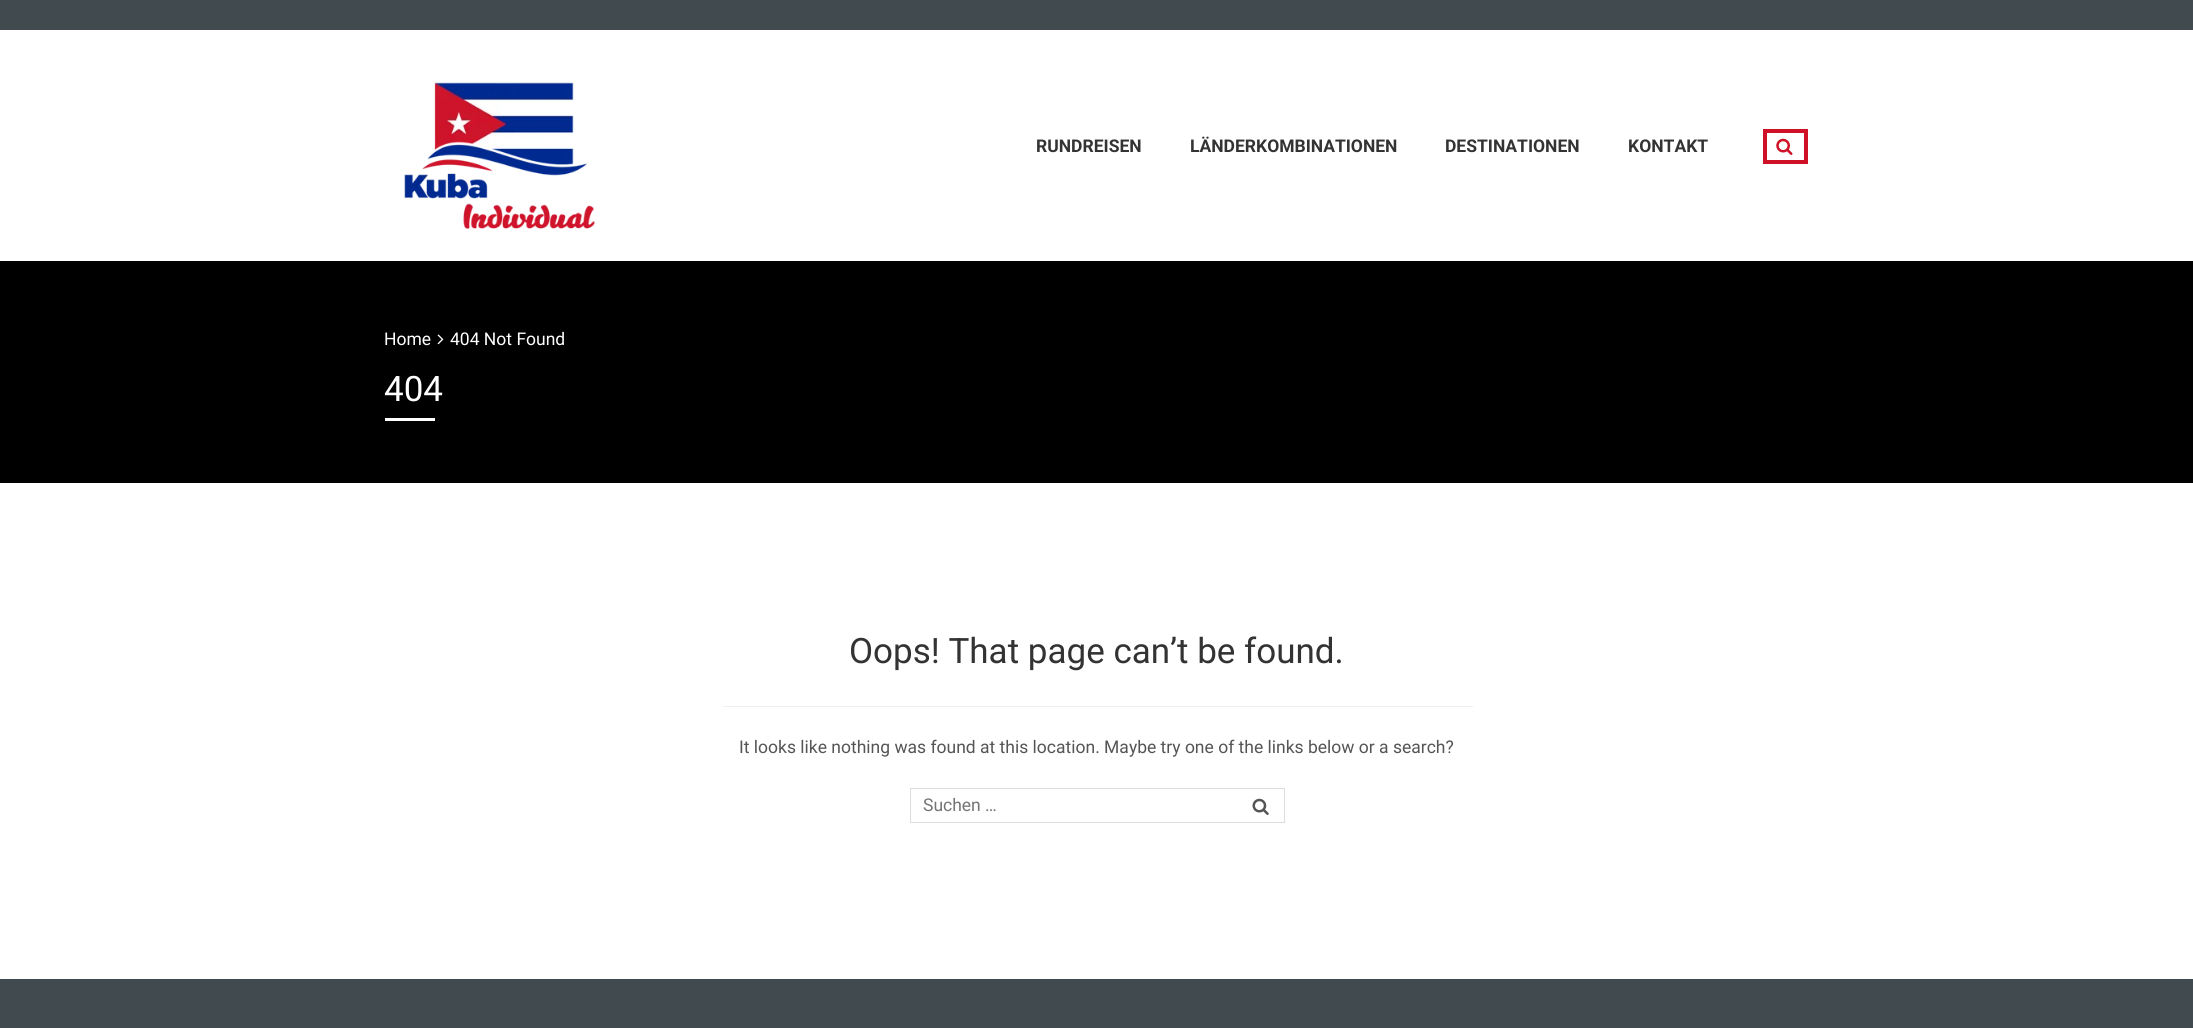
#include <cairo/cairo.h>
#include <math.h>
#include <stddef.h>

static cairo_t *cr;

static void use_color(int r, int g, int b) {
  cairo_set_source_rgb(cr, r / 255.0, g / 255.0, b / 255.0);
}

static void text(double x, double y, const char *s, const char *family, double size, int italic, int bold, int r, int g, int b) {
  cairo_select_font_face(cr, family, italic ? CAIRO_FONT_SLANT_ITALIC : CAIRO_FONT_SLANT_NORMAL,
    bold ? CAIRO_FONT_WEIGHT_BOLD : CAIRO_FONT_WEIGHT_NORMAL);
  cairo_set_font_size(cr, size);
  use_color(r, g, b);
  cairo_move_to(cr, x, y);
  cairo_show_text(cr, s);
}

static void box(double x, double y, double w, double h, int r, int g, int b) {
  use_color(r, g, b);
  cairo_rectangle(cr, x, y, w, h);
  cairo_fill(cr);
}

static void picture(const char *path, double x, double y, double w, double h) {
  cairo_surface_t *image = cairo_image_surface_create_from_png(path);
  cairo_save(cr);
  cairo_set_source_surface(cr, image, x, y);
  cairo_rectangle(cr, x, y, w, h);
  cairo_fill(cr);
  cairo_restore(cr);
  cairo_surface_destroy(image);
}

static void draw(void) {
  use_color(255, 255, 255);
  cairo_paint(cr);
  box(0, 0, 2193, 30, 65, 75, 79);
  picture("img_01.png", 404, 82, 191, 147);
  cairo_rectangle(cr, 1765, 131, 41, 31);
  use_color(206, 17, 38);
  cairo_set_line_width(cr, 4);
  cairo_stroke(cr);
  picture("img_02.png", 1776, 138, 17, 17);
  box(0, 261, 2193, 222, 0, 0, 0);
  picture("img_03.png", 437, 334, 7, 11);
  box(385, 418, 50, 3, 255, 255, 255);
  box(723, 706, 750, 1, 238, 238, 238);
  cairo_rectangle(cr, 910.5, 788.5, 374, 34);
  use_color(221, 221, 221);
  cairo_set_line_width(cr, 1);
  cairo_stroke(cr);
  picture("img_04.png", 1252, 798, 17, 17);
  box(0, 979, 2193, 49, 65, 75, 79);
  text(1036, 152, "RUNDREISEN", "Roboto", 17.5, 0, 1, 51, 51, 51);
  text(1190, 152, "LÄNDERKOMBINATIONEN", "Roboto", 17.5, 0, 1, 51, 51, 51);
  text(1445, 152, "DESTINATIONEN", "Roboto", 17.5, 0, 1, 51, 51, 51);
  text(1628, 152, "KONTAKT", "Roboto", 17.5, 0, 1, 51, 51, 51);
  text(384, 345, "Home", "Roboto", 17.5, 0, 0, 255, 255, 255);
  text(450, 345, "404 Not Found", "Roboto", 17.5, 0, 0, 255, 255, 255);
  text(384, 401, "404", "Roboto", 35, 0, 0, 255, 255, 255);
  text(849, 663, "Oops! That page can’t be found.", "Roboto", 35, 0, 0, 51, 51, 51);
  text(739, 753, "It looks like nothing was found at this location. Maybe try one of the links below or a search?", "Roboto", 17.5, 0, 0, 85, 85, 85);
  text(923, 811, "Suchen …", "Roboto", 17.5, 0, 0, 117, 117, 117);
}

int main(void) {
  cairo_surface_t *surface = cairo_image_surface_create(CAIRO_FORMAT_RGB24, 2193, 1028);
  cr = cairo_create(surface);
  cairo_font_options_t *options = cairo_font_options_create();
  cairo_font_options_set_hint_metrics(options, CAIRO_HINT_METRICS_OFF);
  cairo_font_options_set_hint_style(options, CAIRO_HINT_STYLE_NONE);
  cairo_set_font_options(cr, options);
  cairo_set_miter_limit(cr, 4);
  draw();
  cairo_surface_write_to_png(surface, "out.png");
  cairo_font_options_destroy(options);
  cairo_destroy(cr);
  cairo_surface_destroy(surface);
  return 0;
}
